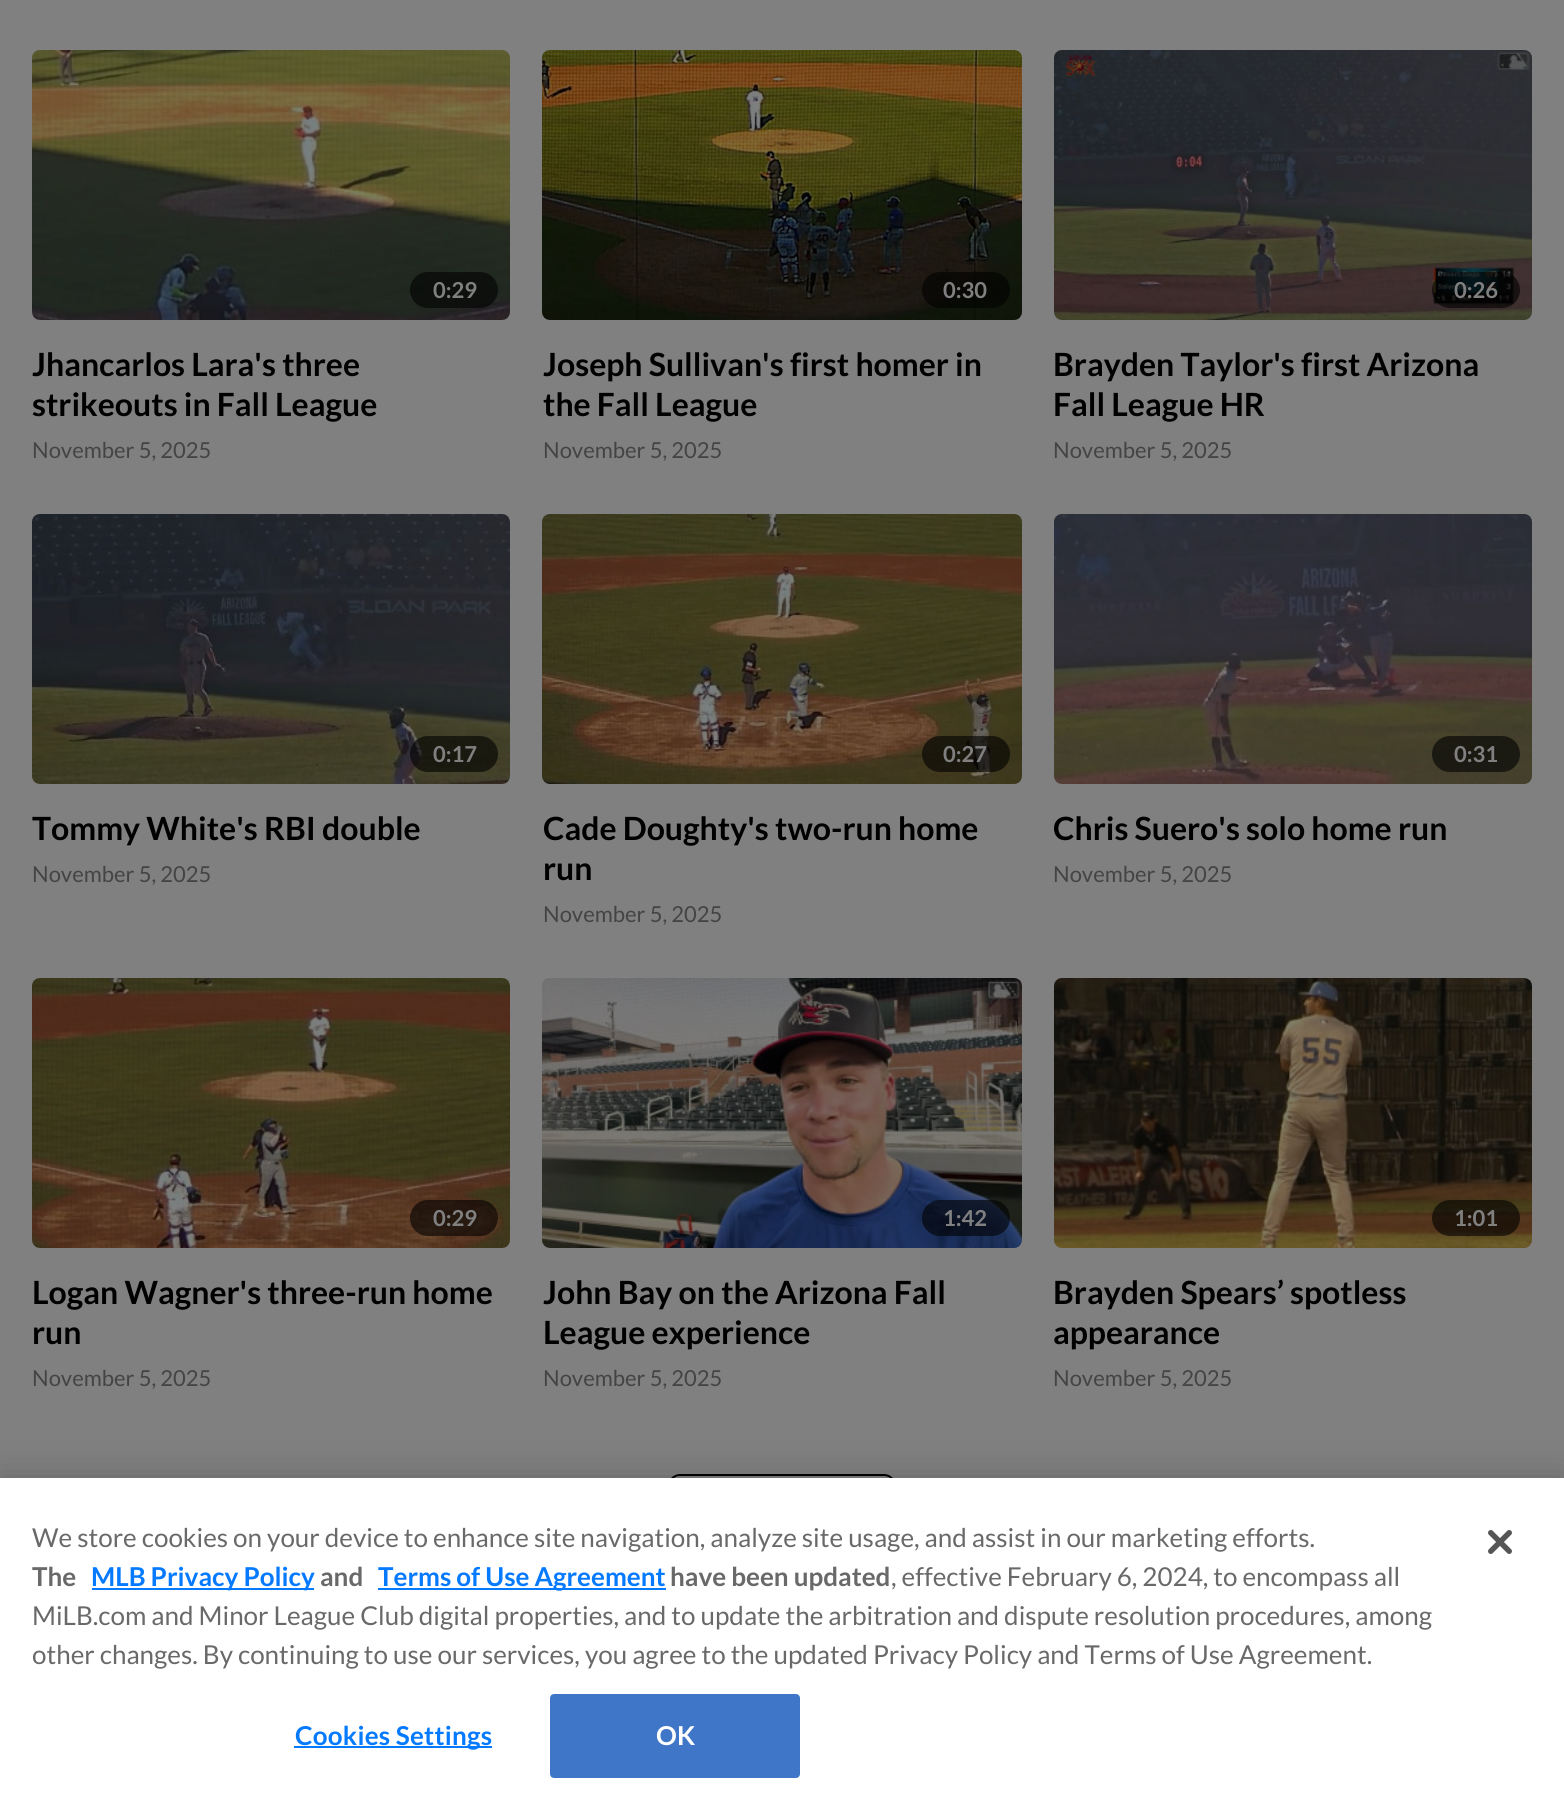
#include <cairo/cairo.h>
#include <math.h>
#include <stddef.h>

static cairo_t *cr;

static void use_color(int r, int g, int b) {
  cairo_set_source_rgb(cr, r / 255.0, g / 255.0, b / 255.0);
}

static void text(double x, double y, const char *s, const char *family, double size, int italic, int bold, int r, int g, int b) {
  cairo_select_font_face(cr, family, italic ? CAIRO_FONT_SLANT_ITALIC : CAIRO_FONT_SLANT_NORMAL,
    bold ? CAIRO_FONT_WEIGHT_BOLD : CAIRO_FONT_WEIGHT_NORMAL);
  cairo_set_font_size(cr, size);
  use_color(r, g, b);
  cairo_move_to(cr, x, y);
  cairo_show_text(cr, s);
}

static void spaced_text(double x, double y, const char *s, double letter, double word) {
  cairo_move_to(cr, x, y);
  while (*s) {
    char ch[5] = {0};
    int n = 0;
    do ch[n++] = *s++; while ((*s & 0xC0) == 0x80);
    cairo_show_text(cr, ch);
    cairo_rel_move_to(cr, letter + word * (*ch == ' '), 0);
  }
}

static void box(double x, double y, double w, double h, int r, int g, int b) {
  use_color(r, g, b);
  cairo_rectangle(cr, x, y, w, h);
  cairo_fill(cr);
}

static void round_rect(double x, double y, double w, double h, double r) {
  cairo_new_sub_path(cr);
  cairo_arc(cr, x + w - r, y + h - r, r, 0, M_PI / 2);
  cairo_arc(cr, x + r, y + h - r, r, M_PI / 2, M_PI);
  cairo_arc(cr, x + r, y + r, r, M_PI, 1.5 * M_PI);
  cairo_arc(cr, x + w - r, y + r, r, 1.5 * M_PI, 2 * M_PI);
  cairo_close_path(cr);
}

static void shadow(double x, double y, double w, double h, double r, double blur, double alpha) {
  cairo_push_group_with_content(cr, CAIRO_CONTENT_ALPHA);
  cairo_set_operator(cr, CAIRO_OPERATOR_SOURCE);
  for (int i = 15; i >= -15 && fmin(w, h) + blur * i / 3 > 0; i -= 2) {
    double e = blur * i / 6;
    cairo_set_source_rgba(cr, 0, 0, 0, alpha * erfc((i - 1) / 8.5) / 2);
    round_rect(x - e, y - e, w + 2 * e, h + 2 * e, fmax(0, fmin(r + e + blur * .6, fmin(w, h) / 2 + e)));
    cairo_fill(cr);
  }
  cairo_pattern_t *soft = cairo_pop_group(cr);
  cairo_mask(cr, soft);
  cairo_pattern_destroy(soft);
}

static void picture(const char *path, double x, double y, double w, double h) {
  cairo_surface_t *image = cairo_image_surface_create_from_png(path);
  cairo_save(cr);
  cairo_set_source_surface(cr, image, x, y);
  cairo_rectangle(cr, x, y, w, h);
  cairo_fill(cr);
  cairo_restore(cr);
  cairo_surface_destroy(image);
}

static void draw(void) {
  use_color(128, 128, 128);
  cairo_paint(cr);
  cairo_save(cr);
  round_rect(32, 50, 478, 270, 8);
  cairo_clip(cr);
  use_color(118, 118, 118);
  cairo_new_path(cr);
  cairo_move_to(cr, 40, 50);
  cairo_line_to(cr, 502, 50);
  cairo_curve_to(cr, 506.5, 50, 510, 53.5, 510, 58);
  cairo_line_to(cr, 510, 319);
  cairo_line_to(cr, 32, 319);
  cairo_line_to(cr, 32, 58);
  cairo_curve_to(cr, 32, 53.5, 35.5, 50, 40, 50);
  cairo_close_path(cr);
  cairo_fill(cr);
  cairo_restore(cr);
  picture("img_01.png", 32, 50, 478, 270);
  cairo_set_source_rgba(cr, 0, 0, 0, 0.6);
  round_rect(410, 272, 88, 36, 18);
  cairo_fill(cr);
  cairo_save(cr);
  round_rect(542, 50, 480, 270, 8);
  cairo_clip(cr);
  use_color(118, 118, 118);
  cairo_new_path(cr);
  cairo_move_to(cr, 550, 50);
  cairo_line_to(cr, 1014, 50);
  cairo_curve_to(cr, 1018.5, 50, 1022, 53.5, 1022, 58);
  cairo_line_to(cr, 1022, 319);
  cairo_line_to(cr, 542, 319);
  cairo_line_to(cr, 542, 58);
  cairo_curve_to(cr, 542, 53.5, 545.5, 50, 550, 50);
  cairo_close_path(cr);
  cairo_fill(cr);
  cairo_restore(cr);
  picture("img_02.png", 542, 50, 480, 270);
  round_rect(922, 272, 88, 36, 18);
  cairo_fill(cr);
  cairo_save(cr);
  round_rect(1054, 50, 478, 270, 8);
  cairo_clip(cr);
  use_color(118, 118, 118);
  cairo_new_path(cr);
  cairo_move_to(cr, 1062, 50);
  cairo_line_to(cr, 1524, 50);
  cairo_curve_to(cr, 1528.5, 50, 1532, 53.5, 1532, 58);
  cairo_line_to(cr, 1532, 319);
  cairo_line_to(cr, 1054, 319);
  cairo_line_to(cr, 1054, 58);
  cairo_curve_to(cr, 1054, 53.5, 1057.5, 50, 1062, 50);
  cairo_close_path(cr);
  cairo_fill(cr);
  cairo_restore(cr);
  picture("img_03.png", 1054, 50, 478, 270);
  round_rect(1432, 272, 88, 36, 18);
  cairo_fill(cr);
  cairo_save(cr);
  round_rect(32, 514, 478, 270, 8);
  cairo_clip(cr);
  use_color(118, 118, 118);
  cairo_new_path(cr);
  cairo_move_to(cr, 40, 514);
  cairo_line_to(cr, 502, 514);
  cairo_curve_to(cr, 506.5, 514, 510, 517.5, 510, 522);
  cairo_line_to(cr, 510, 783);
  cairo_line_to(cr, 32, 783);
  cairo_line_to(cr, 32, 522);
  cairo_curve_to(cr, 32, 517.5, 35.5, 514, 40, 514);
  cairo_close_path(cr);
  cairo_fill(cr);
  cairo_restore(cr);
  picture("img_04.png", 32, 514, 478, 270);
  round_rect(410, 736, 88, 36, 18);
  cairo_fill(cr);
  cairo_save(cr);
  round_rect(542, 514, 480, 270, 8);
  cairo_clip(cr);
  use_color(118, 118, 118);
  cairo_new_path(cr);
  cairo_move_to(cr, 550, 514);
  cairo_line_to(cr, 1014, 514);
  cairo_curve_to(cr, 1018.5, 514, 1022, 517.5, 1022, 522);
  cairo_line_to(cr, 1022, 783);
  cairo_line_to(cr, 542, 783);
  cairo_line_to(cr, 542, 522);
  cairo_curve_to(cr, 542, 517.5, 545.5, 514, 550, 514);
  cairo_close_path(cr);
  cairo_fill(cr);
  cairo_restore(cr);
  picture("img_05.png", 542, 514, 480, 270);
  round_rect(922, 736, 88, 36, 18);
  cairo_fill(cr);
  cairo_save(cr);
  round_rect(1054, 514, 478, 270, 8);
  cairo_clip(cr);
  use_color(118, 118, 118);
  cairo_new_path(cr);
  cairo_move_to(cr, 1062, 514);
  cairo_line_to(cr, 1524, 514);
  cairo_curve_to(cr, 1528.5, 514, 1532, 517.5, 1532, 522);
  cairo_line_to(cr, 1532, 783);
  cairo_line_to(cr, 1054, 783);
  cairo_line_to(cr, 1054, 522);
  cairo_curve_to(cr, 1054, 517.5, 1057.5, 514, 1062, 514);
  cairo_close_path(cr);
  cairo_fill(cr);
  cairo_restore(cr);
  picture("img_06.png", 1054, 514, 478, 270);
  round_rect(1432, 736, 88, 36, 18);
  cairo_fill(cr);
  cairo_save(cr);
  round_rect(32, 978, 478, 270, 8);
  cairo_clip(cr);
  use_color(118, 118, 118);
  cairo_new_path(cr);
  cairo_move_to(cr, 40, 978);
  cairo_line_to(cr, 502, 978);
  cairo_curve_to(cr, 506.5, 978, 510, 981.5, 510, 986);
  cairo_line_to(cr, 510, 1247);
  cairo_line_to(cr, 32, 1247);
  cairo_line_to(cr, 32, 986);
  cairo_curve_to(cr, 32, 981.5, 35.5, 978, 40, 978);
  cairo_close_path(cr);
  cairo_fill(cr);
  cairo_restore(cr);
  picture("img_07.png", 32, 978, 478, 270);
  round_rect(410, 1200, 88, 36, 18);
  cairo_fill(cr);
  cairo_save(cr);
  round_rect(542, 978, 480, 270, 8);
  cairo_clip(cr);
  use_color(118, 118, 118);
  cairo_new_path(cr);
  cairo_move_to(cr, 550, 978);
  cairo_line_to(cr, 1014, 978);
  cairo_curve_to(cr, 1018.5, 978, 1022, 981.5, 1022, 986);
  cairo_line_to(cr, 1022, 1247);
  cairo_line_to(cr, 542, 1247);
  cairo_line_to(cr, 542, 986);
  cairo_curve_to(cr, 542, 981.5, 545.5, 978, 550, 978);
  cairo_close_path(cr);
  cairo_fill(cr);
  cairo_restore(cr);
  picture("img_08.png", 542, 978, 480, 270);
  round_rect(922, 1200, 88, 36, 18);
  cairo_fill(cr);
  cairo_save(cr);
  round_rect(1054, 978, 478, 270, 8);
  cairo_clip(cr);
  use_color(118, 118, 118);
  cairo_new_path(cr);
  cairo_move_to(cr, 1062, 978);
  cairo_line_to(cr, 1524, 978);
  cairo_curve_to(cr, 1528.5, 978, 1532, 981.5, 1532, 986);
  cairo_line_to(cr, 1532, 1247);
  cairo_line_to(cr, 1054, 1247);
  cairo_line_to(cr, 1054, 986);
  cairo_curve_to(cr, 1054, 981.5, 1057.5, 978, 1062, 978);
  cairo_close_path(cr);
  cairo_fill(cr);
  cairo_restore(cr);
  picture("img_09.png", 1054, 978, 478, 270);
  round_rect(1432, 1200, 88, 36, 18);
  cairo_fill(cr);
  round_rect(669, 1475, 226, 70, 11);
  use_color(0, 0, 0);
  cairo_stroke(cr);
  use_color(0, 0, 0);
  shadow(0, 1478, 1564, 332, 0, 18, 0.2);
  box(0, 1478, 1564, 331, 255, 255, 255);
  box(92, 1588, 222, 2, 5, 122, 255);
  box(378, 1588, 288, 2, 5, 122, 255);
  box(294, 1746, 198, 2, 5, 122, 255);
  use_color(64, 118, 199);
  round_rect(551, 1695, 248, 82, 3);
  cairo_fill_preserve(cr);
  cairo_stroke(cr);
  picture("img_10.png", 1488, 1530, 24, 24);
  text(433, 298, "0:29", "Lato", 22, 0, 1, 128, 128, 128);
  text(32, 376, "Jhancarlos Lara's three", "Lato", 32, 0, 1, 0, 0, 0);
  text(32, 416, "strikeouts in Fall League", "Lato", 32, 0, 1, 0, 0, 0);
  text(32, 458, "November 5, 2025", "Lato", 22, 0, 0, 68, 68, 68);
  text(943, 298, "0:30", "Lato", 22, 0, 1, 128, 128, 128);
  text(543, 376, "Joseph Sullivan's first homer in", "Lato", 32, 0, 1, 0, 0, 0);
  text(543, 416, "the Fall League", "Lato", 32, 0, 1, 0, 0, 0);
  text(543, 458, "November 5, 2025", "Lato", 22, 0, 0, 68, 68, 68);
  text(1454, 298, "0:26", "Lato", 22, 0, 1, 128, 128, 128);
  text(1053, 376, "Brayden Taylor's first Arizona", "Lato", 32, 0, 1, 0, 0, 0);
  text(1053, 416, "Fall League HR", "Lato", 32, 0, 1, 0, 0, 0);
  text(1053, 458, "November 5, 2025", "Lato", 22, 0, 0, 68, 68, 68);
  text(433, 762, "0:17", "Lato", 22, 0, 1, 128, 128, 128);
  text(32, 840, "Tommy White's RBI double", "Lato", 32, 0, 1, 0, 0, 0);
  text(32, 882, "November 5, 2025", "Lato", 22, 0, 0, 68, 68, 68);
  text(943, 762, "0:27", "Lato", 22, 0, 1, 128, 128, 128);
  text(543, 840, "Cade Doughty's two-run home", "Lato", 32, 0, 1, 0, 0, 0);
  text(543, 880, "run", "Lato", 32, 0, 1, 0, 0, 0);
  text(543, 922, "November 5, 2025", "Lato", 22, 0, 0, 68, 68, 68);
  text(1454, 762, "0:31", "Lato", 22, 0, 1, 128, 128, 128);
  text(1053, 840, "Chris Suero's solo home run", "Lato", 32, 0, 1, 0, 0, 0);
  text(1053, 882, "November 5, 2025", "Lato", 22, 0, 0, 68, 68, 68);
  text(433, 1226, "0:29", "Lato", 22, 0, 1, 128, 128, 128);
  text(32, 1304, "Logan Wagner's three-run home", "Lato", 32, 0, 1, 0, 0, 0);
  text(32, 1344, "run", "Lato", 32, 0, 1, 0, 0, 0);
  text(32, 1386, "November 5, 2025", "Lato", 22, 0, 0, 68, 68, 68);
  text(943, 1226, "1:42", "Lato", 22, 0, 1, 128, 128, 128);
  text(543, 1304, "John Bay on the Arizona Fall", "Lato", 32, 0, 1, 0, 0, 0);
  text(543, 1344, "League experience", "Lato", 32, 0, 1, 0, 0, 0);
  text(543, 1386, "November 5, 2025", "Lato", 22, 0, 0, 68, 68, 68);
  text(1454, 1226, "1:01", "Lato", 22, 0, 1, 128, 128, 128);
  text(1053, 1304, "Brayden Spears’ spotless", "Lato", 32, 0, 1, 0, 0, 0);
  text(1053, 1344, "appearance", "Lato", 32, 0, 1, 0, 0, 0);
  text(1053, 1386, "November 5, 2025", "Lato", 22, 0, 0, 68, 68, 68);
  text(32, 1547, "We store cookies on your device to enhance site navigation, analyze site usage, and assist in our marketing efforts.", "Lato", 26.02, 0, 0, 105, 105, 105);
  text(32, 1586, "The", "Lato", 26.02, 0, 1, 105, 105, 105);
  text(91, 1586, "MLB Privacy Policy", "Lato", 26.02, 0, 1, 5, 122, 255);
  text(320, 1586, "and", "Lato", 26.02, 0, 1, 105, 105, 105);
  text(378, 1586, "Terms of Use Agreement", "Lato", 26.02, 0, 1, 5, 122, 255);
  text(670, 1586, "have been updated", "Lato", 26.02, 0, 1, 105, 105, 105);
  text(891, 1586, ", effective February 6, 2024, to encompass all", "Lato", 26.02, 0, 0, 105, 105, 105);
  text(32, 1625, "MiLB.com and Minor League Club digital properties, and to update the arbitration and dispute resolution procedures, among", "Lato", 26.02, 0, 0, 105, 105, 105);
  text(32, 1664, "other changes. By continuing to use our services, you agree to the updated Privacy Policy and Terms of Use Agreement.", "Lato", 26.02, 0, 0, 105, 105, 105);
  cairo_select_font_face(cr, "Lato", CAIRO_FONT_SLANT_NORMAL, CAIRO_FONT_WEIGHT_BOLD);
  use_color(5, 122, 255);
  spaced_text(295, 1745, "Cookies Settings", 0.25, 0);
  use_color(255, 255, 255);
  spaced_text(656, 1745, "OK", 0.25, 0);
}

int main(void) {
  cairo_surface_t *surface = cairo_image_surface_create(CAIRO_FORMAT_RGB24, 1564, 1809);
  cr = cairo_create(surface);
  cairo_font_options_t *options = cairo_font_options_create();
  cairo_font_options_set_hint_metrics(options, CAIRO_HINT_METRICS_OFF);
  cairo_font_options_set_hint_style(options, CAIRO_HINT_STYLE_NONE);
  cairo_set_font_options(cr, options);
  cairo_set_miter_limit(cr, 4);
  draw();
  cairo_surface_write_to_png(surface, "out.png");
  cairo_font_options_destroy(options);
  cairo_destroy(cr);
  cairo_surface_destroy(surface);
  return 0;
}
